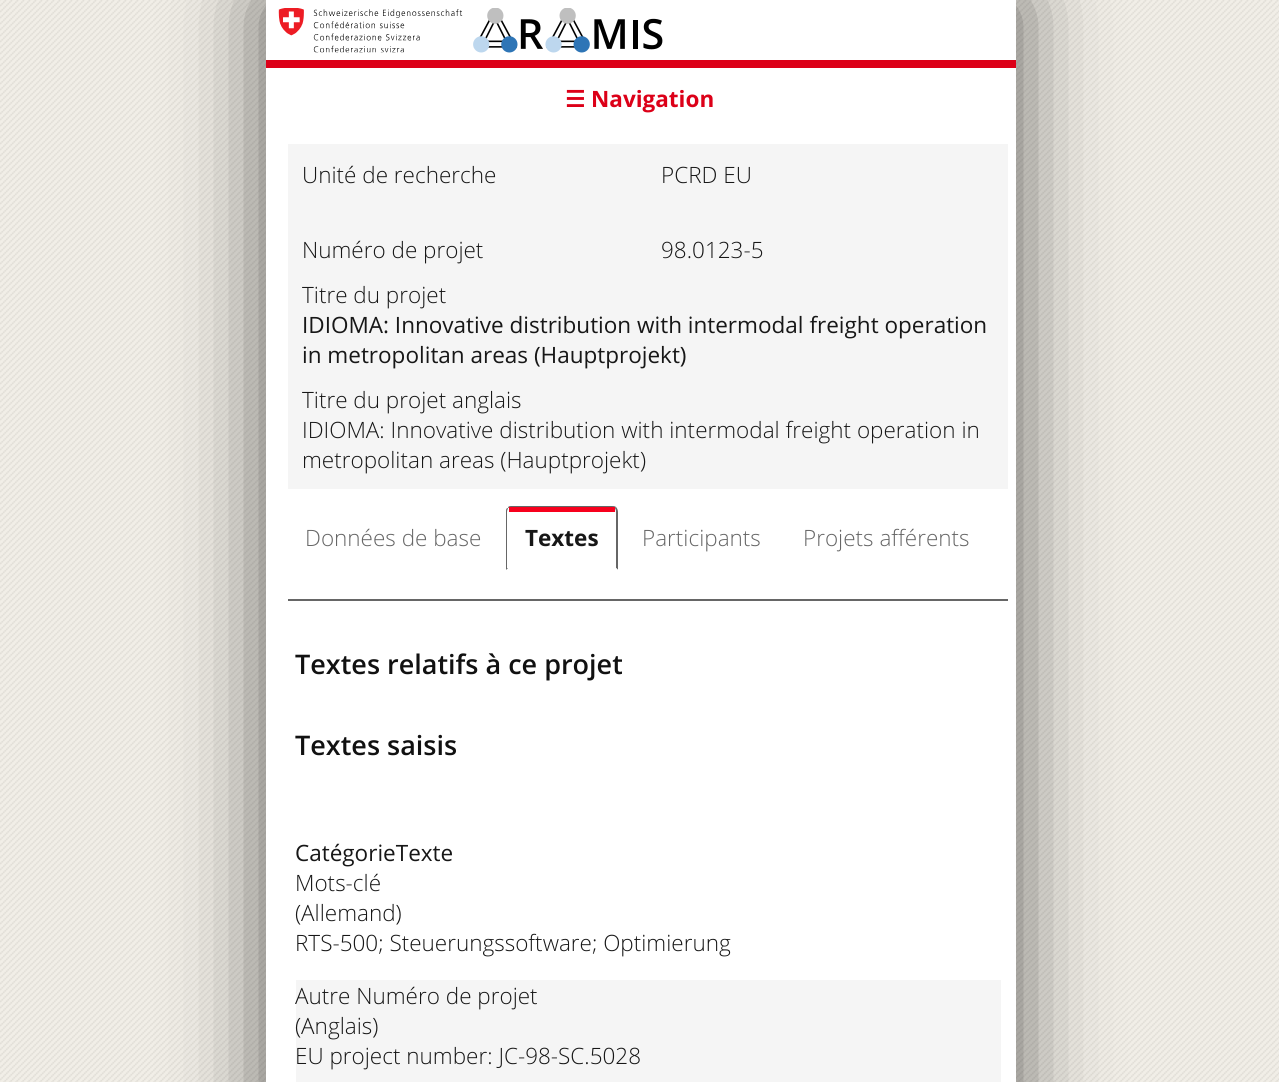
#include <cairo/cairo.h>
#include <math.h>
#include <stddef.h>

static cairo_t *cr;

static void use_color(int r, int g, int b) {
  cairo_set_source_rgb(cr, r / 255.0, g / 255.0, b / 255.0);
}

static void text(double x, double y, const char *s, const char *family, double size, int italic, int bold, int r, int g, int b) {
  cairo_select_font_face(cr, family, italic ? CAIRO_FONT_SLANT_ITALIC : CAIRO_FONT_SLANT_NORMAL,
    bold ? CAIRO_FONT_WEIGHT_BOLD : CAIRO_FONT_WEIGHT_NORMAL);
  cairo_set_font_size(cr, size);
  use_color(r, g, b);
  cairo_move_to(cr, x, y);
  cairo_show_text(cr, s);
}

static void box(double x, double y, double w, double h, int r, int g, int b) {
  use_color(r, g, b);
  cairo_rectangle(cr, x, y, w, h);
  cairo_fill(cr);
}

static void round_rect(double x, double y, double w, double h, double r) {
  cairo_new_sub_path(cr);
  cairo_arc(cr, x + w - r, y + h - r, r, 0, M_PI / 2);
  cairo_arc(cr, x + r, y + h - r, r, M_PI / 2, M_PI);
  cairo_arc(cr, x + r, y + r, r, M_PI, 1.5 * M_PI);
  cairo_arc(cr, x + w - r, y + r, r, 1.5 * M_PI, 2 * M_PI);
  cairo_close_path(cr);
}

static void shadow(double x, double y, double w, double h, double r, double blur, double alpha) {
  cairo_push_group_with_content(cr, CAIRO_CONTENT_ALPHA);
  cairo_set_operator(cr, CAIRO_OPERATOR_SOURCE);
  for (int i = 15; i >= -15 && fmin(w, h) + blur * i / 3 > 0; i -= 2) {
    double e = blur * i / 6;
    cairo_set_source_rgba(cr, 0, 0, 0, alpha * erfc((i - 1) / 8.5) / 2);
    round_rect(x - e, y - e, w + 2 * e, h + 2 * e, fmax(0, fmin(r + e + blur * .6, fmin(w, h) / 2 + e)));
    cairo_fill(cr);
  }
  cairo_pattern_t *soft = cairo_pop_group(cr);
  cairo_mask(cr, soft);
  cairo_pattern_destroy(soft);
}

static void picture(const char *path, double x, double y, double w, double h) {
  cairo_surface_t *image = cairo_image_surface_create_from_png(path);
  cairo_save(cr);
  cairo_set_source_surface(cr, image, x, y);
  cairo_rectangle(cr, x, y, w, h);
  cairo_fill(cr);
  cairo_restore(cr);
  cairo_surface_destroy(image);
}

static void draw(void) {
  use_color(255, 255, 255);
  cairo_paint(cr);
  picture("img_01.png", 0, 0, 1279, 1082);
  use_color(0, 0, 0);
  shadow(266, 0, 750, 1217, 0, 45, 0.6);
  box(266, 0, 750, 1082, 255, 255, 255);
  box(266, 60, 750, 8, 220, 0, 24);
  picture("img_02.png", 278, 8, 185, 45);
  picture("img_03.png", 473, 8, 190, 45);
  box(288, 144, 720, 345, 245, 245, 245);
  box(288, 599, 720, 2, 102, 102, 102);
  cairo_new_path(cr);
  cairo_move_to(cr, 512, 506);
  cairo_curve_to(cr, 510, 506, 508, 506, 508, 508);
  cairo_curve_to(cr, 509, 508, 510, 507, 512, 507);
  cairo_line_to(cr, 612, 507);
  cairo_curve_to(cr, 613, 507, 614, 508, 615, 509);
  cairo_line_to(cr, 616, 507);
  cairo_curve_to(cr, 615, 506, 613, 506, 612, 506);
  cairo_close_path(cr);
  cairo_fill(cr);
  cairo_new_path(cr);
  cairo_move_to(cr, 616, 507);
  cairo_curve_to(cr, 617, 508, 618, 510, 618, 512);
  cairo_line_to(cr, 618, 570);
  cairo_line_to(cr, 616, 568);
  cairo_line_to(cr, 616, 512);
  cairo_curve_to(cr, 616, 511, 616, 509, 615, 509);
  cairo_close_path(cr);
  cairo_fill(cr);
  use_color(255, 255, 255);
  cairo_new_path(cr);
  cairo_move_to(cr, 618, 570);
  cairo_line_to(cr, 616, 568);
  cairo_line_to(cr, 508, 568);
  cairo_line_to(cr, 506, 570);
  cairo_close_path(cr);
  cairo_fill(cr);
  use_color(102, 102, 102);
  cairo_new_path(cr);
  cairo_move_to(cr, 508, 508);
  cairo_curve_to(cr, 506, 508, 506, 510, 506, 512);
  cairo_line_to(cr, 506, 570);
  cairo_line_to(cr, 508, 568);
  cairo_line_to(cr, 507, 568);
  cairo_line_to(cr, 507, 512);
  cairo_curve_to(cr, 507, 510, 508, 509, 508, 508);
  cairo_close_path(cr);
  cairo_fill(cr);
  box(509, 507, 106, 5, 247, 0, 29);
  box(296, 980, 705, 102, 245, 245, 245);
  text(565, 107, "☰", "DejaVu Sans", 22.5, 0, 1, 220, 0, 24);
  text(591, 107, "Navigation", "Open Sans", 22.5, 0, 1, 220, 0, 24);
  text(302, 183, "Unité de recherche", "Open Sans Light", 22.5, 0, 0, 23, 23, 23);
  text(661, 183, "PCRD EU", "Open Sans Light", 22.5, 0, 0, 23, 23, 23);
  text(302, 258, "Numéro de projet", "Open Sans Light", 22.5, 0, 0, 23, 23, 23);
  text(661, 258, "98.0123-5", "Open Sans Light", 22.5, 0, 0, 23, 23, 23);
  text(302, 303, "Titre du projet", "Open Sans Light", 22.5, 0, 0, 23, 23, 23);
  text(302, 333, "IDIOMA: Innovative distribution with intermodal freight operation", "Open Sans", 22.5, 0, 0, 23, 23, 23);
  text(302, 363, "in metropolitan areas (Hauptprojekt)", "Open Sans", 22.5, 0, 0, 23, 23, 23);
  text(302, 408, "Titre du projet anglais", "Open Sans Light", 22.5, 0, 0, 23, 23, 23);
  text(302, 438, "IDIOMA: Innovative distribution with intermodal freight operation in", "Open Sans Light", 22.5, 0, 0, 23, 23, 23);
  text(302, 468, "metropolitan areas (Hauptprojekt)", "Open Sans Light", 22.5, 0, 0, 23, 23, 23);
  text(305, 546, "Données de base", "Open Sans Light", 22.5, 0, 0, 102, 102, 102);
  text(525, 546, "Textes", "Open Sans", 22.5, 0, 1, 23, 23, 23);
  text(642, 546, "Participants", "Open Sans Light", 22.5, 0, 0, 102, 102, 102);
  text(803, 546, "Projets afférents", "Open Sans Light", 22.5, 0, 0, 102, 102, 102);
  text(295, 674, "Textes relatifs à ce projet", "Open Sans SemiBold", 27, 0, 0, 17, 17, 17);
  text(295, 755, "Textes saisis", "Open Sans SemiBold", 27, 0, 0, 17, 17, 17);
  text(295, 861, "CatégorieTexte", "Open Sans", 22.5, 0, 0, 23, 23, 23);
  text(295, 891, "Mots-clé", "Open Sans Light", 22.5, 0, 0, 23, 23, 23);
  text(295, 921, "(Allemand)", "Open Sans Light", 22.5, 0, 0, 23, 23, 23);
  text(295, 951, "RTS-500; Steuerungssoftware; Optimierung", "Open Sans Light", 22.5, 0, 0, 23, 23, 23);
  text(295, 1004, "Autre Numéro de projet", "Open Sans Light", 22.5, 0, 0, 23, 23, 23);
  text(295, 1034, "(Anglais)", "Open Sans Light", 22.5, 0, 0, 23, 23, 23);
  text(295, 1064, "EU project number: JC-98-SC.5028", "Open Sans Light", 22.5, 0, 0, 23, 23, 23);
}

int main(void) {
  cairo_surface_t *surface = cairo_image_surface_create(CAIRO_FORMAT_RGB24, 1279, 1082);
  cr = cairo_create(surface);
  cairo_font_options_t *options = cairo_font_options_create();
  cairo_font_options_set_hint_metrics(options, CAIRO_HINT_METRICS_OFF);
  cairo_font_options_set_hint_style(options, CAIRO_HINT_STYLE_NONE);
  cairo_set_font_options(cr, options);
  cairo_set_miter_limit(cr, 4);
  draw();
  cairo_surface_write_to_png(surface, "out.png");
  cairo_font_options_destroy(options);
  cairo_destroy(cr);
  cairo_surface_destroy(surface);
  return 0;
}
